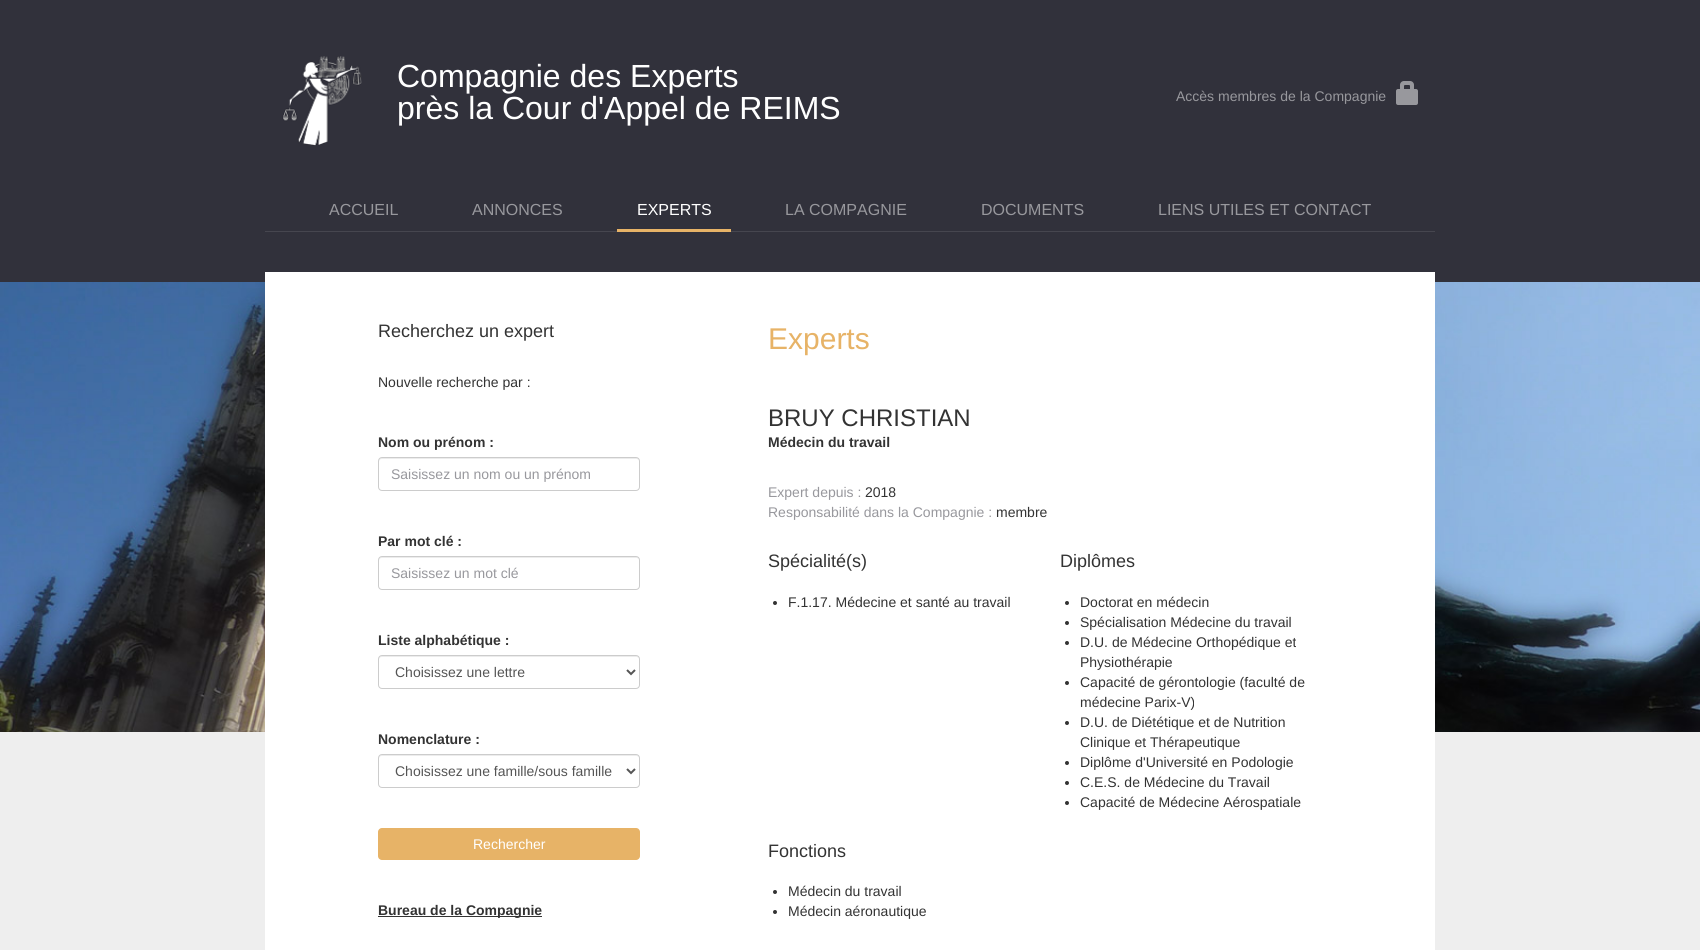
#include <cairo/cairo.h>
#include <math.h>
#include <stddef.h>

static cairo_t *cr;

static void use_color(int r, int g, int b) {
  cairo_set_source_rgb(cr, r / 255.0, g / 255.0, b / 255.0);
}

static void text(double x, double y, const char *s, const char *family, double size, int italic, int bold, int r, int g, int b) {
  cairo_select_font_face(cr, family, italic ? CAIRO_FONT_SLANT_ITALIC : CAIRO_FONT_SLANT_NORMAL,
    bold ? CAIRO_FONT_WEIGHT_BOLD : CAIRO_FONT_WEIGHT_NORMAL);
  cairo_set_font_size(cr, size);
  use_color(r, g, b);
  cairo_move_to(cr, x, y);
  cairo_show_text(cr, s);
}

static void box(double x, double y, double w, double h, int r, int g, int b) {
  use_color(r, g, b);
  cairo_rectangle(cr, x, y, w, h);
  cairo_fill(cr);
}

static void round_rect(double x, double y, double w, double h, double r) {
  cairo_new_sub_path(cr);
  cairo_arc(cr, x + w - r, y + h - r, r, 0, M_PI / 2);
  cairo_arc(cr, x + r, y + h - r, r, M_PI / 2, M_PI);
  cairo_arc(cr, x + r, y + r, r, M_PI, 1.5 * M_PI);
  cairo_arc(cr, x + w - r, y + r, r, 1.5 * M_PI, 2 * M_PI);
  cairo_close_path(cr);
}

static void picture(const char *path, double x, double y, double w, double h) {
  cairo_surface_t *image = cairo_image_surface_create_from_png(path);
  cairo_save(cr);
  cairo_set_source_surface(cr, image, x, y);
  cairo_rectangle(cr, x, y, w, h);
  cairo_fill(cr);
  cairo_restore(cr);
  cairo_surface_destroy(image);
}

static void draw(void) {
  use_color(49, 49, 59);
  cairo_paint(cr);
  picture("img_01.png", 282, 56, 80, 90);
  picture("img_02.png", 1396, 81, 22, 24);
  box(265, 231, 1170, 1, 70, 70, 79);
  box(617, 229, 114, 3, 231, 179, 103);
  box(0, 732, 1700, 218, 238, 238, 238);
  picture("img_03.png", 0, 282, 1700, 450);
  box(265, 272, 1170, 678, 255, 255, 255);
  use_color(236, 236, 236);
  cairo_new_path(cr);
  cairo_move_to(cr, 382, 459);
  cairo_line_to(cr, 637, 459);
  cairo_line_to(cr, 639, 460);
  cairo_line_to(cr, 639, 462);
  cairo_line_to(cr, 639, 461);
  cairo_curve_to(cr, 639, 459, 638, 458, 636, 458);
  cairo_line_to(cr, 382, 458);
  cairo_curve_to(cr, 380, 458, 379, 459, 379, 461);
  cairo_line_to(cr, 379, 462);
  cairo_curve_to(cr, 379, 460, 380, 459, 382, 459);
  cairo_close_path(cr);
  cairo_fill(cr);
  round_rect(378.5, 457.5, 261, 33, 3.5);
  use_color(204, 204, 204);
  cairo_set_line_width(cr, 1);
  cairo_stroke(cr);
  use_color(236, 236, 236);
  cairo_new_path(cr);
  cairo_move_to(cr, 382, 558);
  cairo_line_to(cr, 637, 558);
  cairo_line_to(cr, 639, 559);
  cairo_line_to(cr, 639, 561);
  cairo_line_to(cr, 639, 560);
  cairo_curve_to(cr, 639, 558, 638, 557, 636, 557);
  cairo_line_to(cr, 382, 557);
  cairo_curve_to(cr, 380, 557, 379, 558, 379, 560);
  cairo_line_to(cr, 379, 561);
  cairo_curve_to(cr, 379, 559, 380, 558, 382, 558);
  cairo_close_path(cr);
  cairo_fill(cr);
  round_rect(378.5, 556.5, 261, 33, 3.5);
  use_color(204, 204, 204);
  cairo_stroke(cr);
  use_color(236, 236, 236);
  cairo_new_path(cr);
  cairo_move_to(cr, 382, 657);
  cairo_line_to(cr, 637, 657);
  cairo_line_to(cr, 639, 658);
  cairo_line_to(cr, 639, 660);
  cairo_line_to(cr, 639, 659);
  cairo_curve_to(cr, 639, 657, 638, 656, 636, 656);
  cairo_line_to(cr, 382, 656);
  cairo_curve_to(cr, 380, 656, 379, 657, 379, 659);
  cairo_line_to(cr, 379, 660);
  cairo_curve_to(cr, 379, 658, 380, 657, 382, 657);
  cairo_close_path(cr);
  cairo_fill(cr);
  round_rect(378.5, 655.5, 261, 33, 3.5);
  use_color(204, 204, 204);
  cairo_stroke(cr);
  cairo_new_path(cr);
  cairo_move_to(cr, 627, 670);
  cairo_line_to(cr, 631, 674);
  cairo_line_to(cr, 635, 670);
  use_color(85, 85, 85);
  cairo_set_line_width(cr, 2);
  cairo_stroke(cr);
  use_color(236, 236, 236);
  cairo_new_path(cr);
  cairo_move_to(cr, 382, 756);
  cairo_line_to(cr, 637, 756);
  cairo_line_to(cr, 639, 757);
  cairo_line_to(cr, 639, 759);
  cairo_line_to(cr, 639, 758);
  cairo_curve_to(cr, 639, 756, 638, 755, 636, 755);
  cairo_line_to(cr, 382, 755);
  cairo_curve_to(cr, 380, 755, 379, 756, 379, 758);
  cairo_line_to(cr, 379, 759);
  cairo_curve_to(cr, 379, 757, 380, 756, 382, 756);
  cairo_close_path(cr);
  cairo_fill(cr);
  round_rect(378.5, 754.5, 261, 33, 3.5);
  use_color(204, 204, 204);
  cairo_set_line_width(cr, 1);
  cairo_stroke(cr);
  cairo_new_path(cr);
  cairo_move_to(cr, 627, 769);
  cairo_line_to(cr, 631, 773);
  cairo_line_to(cr, 635, 769);
  use_color(85, 85, 85);
  cairo_set_line_width(cr, 2);
  cairo_stroke(cr);
  use_color(231, 179, 103);
  round_rect(378, 828, 262, 32, 4);
  cairo_fill(cr);
  box(378, 916, 164, 1, 51, 51, 51);
  cairo_arc(cr, 775, 603, 2, 0, 2 * M_PI);
  cairo_fill(cr);
  cairo_arc(cr, 1067, 603, 2, 0, 2 * M_PI);
  cairo_fill(cr);
  cairo_arc(cr, 1067, 623, 2, 0, 2 * M_PI);
  cairo_fill(cr);
  cairo_arc(cr, 1067, 643, 2, 0, 2 * M_PI);
  cairo_fill(cr);
  cairo_arc(cr, 1067, 683, 2, 0, 2 * M_PI);
  cairo_fill(cr);
  cairo_arc(cr, 1067, 723, 2, 0, 2 * M_PI);
  cairo_fill(cr);
  cairo_arc(cr, 1067, 763, 2, 0, 2 * M_PI);
  cairo_fill(cr);
  cairo_arc(cr, 1067, 783, 2, 0, 2 * M_PI);
  cairo_fill(cr);
  cairo_arc(cr, 1067, 803, 2, 0, 2 * M_PI);
  cairo_fill(cr);
  cairo_arc(cr, 775, 892, 2, 0, 2 * M_PI);
  cairo_fill(cr);
  cairo_arc(cr, 775, 912, 2, 0, 2 * M_PI);
  cairo_fill(cr);
  text(397, 87, "Compagnie des Experts", "Liberation Sans", 32, 0, 0, 255, 255, 255);
  text(397, 119, "près la Cour d'Appel de REIMS", "Liberation Sans", 32, 0, 0, 255, 255, 255);
  text(1176, 101, "Accès membres de la Compagnie", "Liberation Sans", 14, 0, 0, 152, 152, 157);
  text(329, 215, "ACCUEIL", "Liberation Sans", 16, 0, 0, 152, 152, 157);
  text(472, 215, "ANNONCES", "Liberation Sans", 16, 0, 0, 152, 152, 157);
  text(637, 215, "EXPERTS", "Liberation Sans", 16, 0, 0, 255, 255, 255);
  text(785, 215, "LA COMPAGNIE", "Liberation Sans", 16, 0, 0, 152, 152, 157);
  text(981, 215, "DOCUMENTS", "Liberation Sans", 16, 0, 0, 152, 152, 157);
  text(1158, 215, "LIENS UTILES ET CONTACT", "Liberation Sans", 16, 0, 0, 152, 152, 157);
  text(378, 337, "Recherchez un expert", "Liberation Sans", 18, 0, 0, 51, 51, 51);
  text(378, 387, "Nouvelle recherche par :", "Liberation Sans", 14, 0, 0, 51, 51, 51);
  text(378, 447, "Nom ou prénom :", "Liberation Sans", 14, 0, 1, 51, 51, 51);
  text(391, 479, "Saisissez un nom ou un prénom", "Liberation Sans", 14, 0, 0, 152, 152, 157);
  text(378, 546, "Par mot clé :", "Liberation Sans", 14, 0, 1, 51, 51, 51);
  text(391, 578, "Saisissez un mot clé", "Liberation Sans", 14, 0, 0, 152, 152, 157);
  text(378, 645, "Liste alphabétique :", "Liberation Sans", 14, 0, 1, 51, 51, 51);
  text(395, 677, "Choisissez une lettre", "Liberation Sans", 14, 0, 0, 85, 85, 85);
  text(378, 744, "Nomenclature :", "Liberation Sans", 14, 0, 1, 51, 51, 51);
  text(395, 776, "Choisissez une famille/sous famille", "Liberation Sans", 14, 0, 0, 85, 85, 85);
  text(473, 849, "Rechercher", "Liberation Sans", 14, 0, 0, 255, 255, 255);
  text(378, 915, "Bureau de la Compagnie", "Liberation Sans", 14, 0, 1, 51, 51, 51);
  text(768, 349, "Experts", "Liberation Sans", 30, 0, 0, 231, 179, 103);
  text(768, 426, "BRUY CHRISTIAN", "Liberation Sans", 24, 0, 0, 51, 51, 51);
  text(768, 447, "Médecin du travail", "Liberation Sans", 14, 0, 1, 51, 51, 51);
  text(768, 497, "Expert depuis :", "Liberation Sans", 14, 0, 0, 152, 152, 157);
  text(865, 497, "2018", "Liberation Sans", 14, 0, 0, 51, 51, 51);
  text(768, 517, "Responsabilité dans la Compagnie :", "Liberation Sans", 14, 0, 0, 152, 152, 157);
  text(996, 517, "membre", "Liberation Sans", 14, 0, 0, 51, 51, 51);
  text(768, 567, "Spécialité(s)", "Liberation Sans", 18, 0, 0, 51, 51, 51);
  text(788, 607, "F.1.17. Médecine et santé au travail", "Liberation Sans", 14, 0, 0, 51, 51, 51);
  text(1060, 567, "Diplômes", "Liberation Sans", 18, 0, 0, 51, 51, 51);
  text(1080, 607, "Doctorat en médecin", "Liberation Sans", 14, 0, 0, 51, 51, 51);
  text(1080, 627, "Spécialisation Médecine du travail", "Liberation Sans", 14, 0, 0, 51, 51, 51);
  text(1080, 647, "D.U. de Médecine Orthopédique et", "Liberation Sans", 14, 0, 0, 51, 51, 51);
  text(1080, 667, "Physiothérapie", "Liberation Sans", 14, 0, 0, 51, 51, 51);
  text(1080, 687, "Capacité de gérontologie (faculté de", "Liberation Sans", 14, 0, 0, 51, 51, 51);
  text(1080, 707, "médecine Parix-V)", "Liberation Sans", 14, 0, 0, 51, 51, 51);
  text(1080, 727, "D.U. de Diététique et de Nutrition", "Liberation Sans", 14, 0, 0, 51, 51, 51);
  text(1080, 747, "Clinique et Thérapeutique", "Liberation Sans", 14, 0, 0, 51, 51, 51);
  text(1080, 767, "Diplôme d'Université en Podologie", "Liberation Sans", 14, 0, 0, 51, 51, 51);
  text(1080, 787, "C.E.S. de Médecine du Travail", "Liberation Sans", 14, 0, 0, 51, 51, 51);
  text(1080, 807, "Capacité de Médecine Aérospatiale", "Liberation Sans", 14, 0, 0, 51, 51, 51);
  text(768, 857, "Fonctions", "Liberation Sans", 18, 0, 0, 51, 51, 51);
  text(788, 896, "Médecin du travail", "Liberation Sans", 14, 0, 0, 51, 51, 51);
  text(788, 916, "Médecin aéronautique", "Liberation Sans", 14, 0, 0, 51, 51, 51);
}

int main(void) {
  cairo_surface_t *surface = cairo_image_surface_create(CAIRO_FORMAT_RGB24, 1700, 950);
  cr = cairo_create(surface);
  cairo_font_options_t *options = cairo_font_options_create();
  cairo_font_options_set_hint_metrics(options, CAIRO_HINT_METRICS_OFF);
  cairo_font_options_set_hint_style(options, CAIRO_HINT_STYLE_NONE);
  cairo_set_font_options(cr, options);
  cairo_set_miter_limit(cr, 4);
  draw();
  cairo_surface_write_to_png(surface, "out.png");
  cairo_font_options_destroy(options);
  cairo_destroy(cr);
  cairo_surface_destroy(surface);
  return 0;
}
